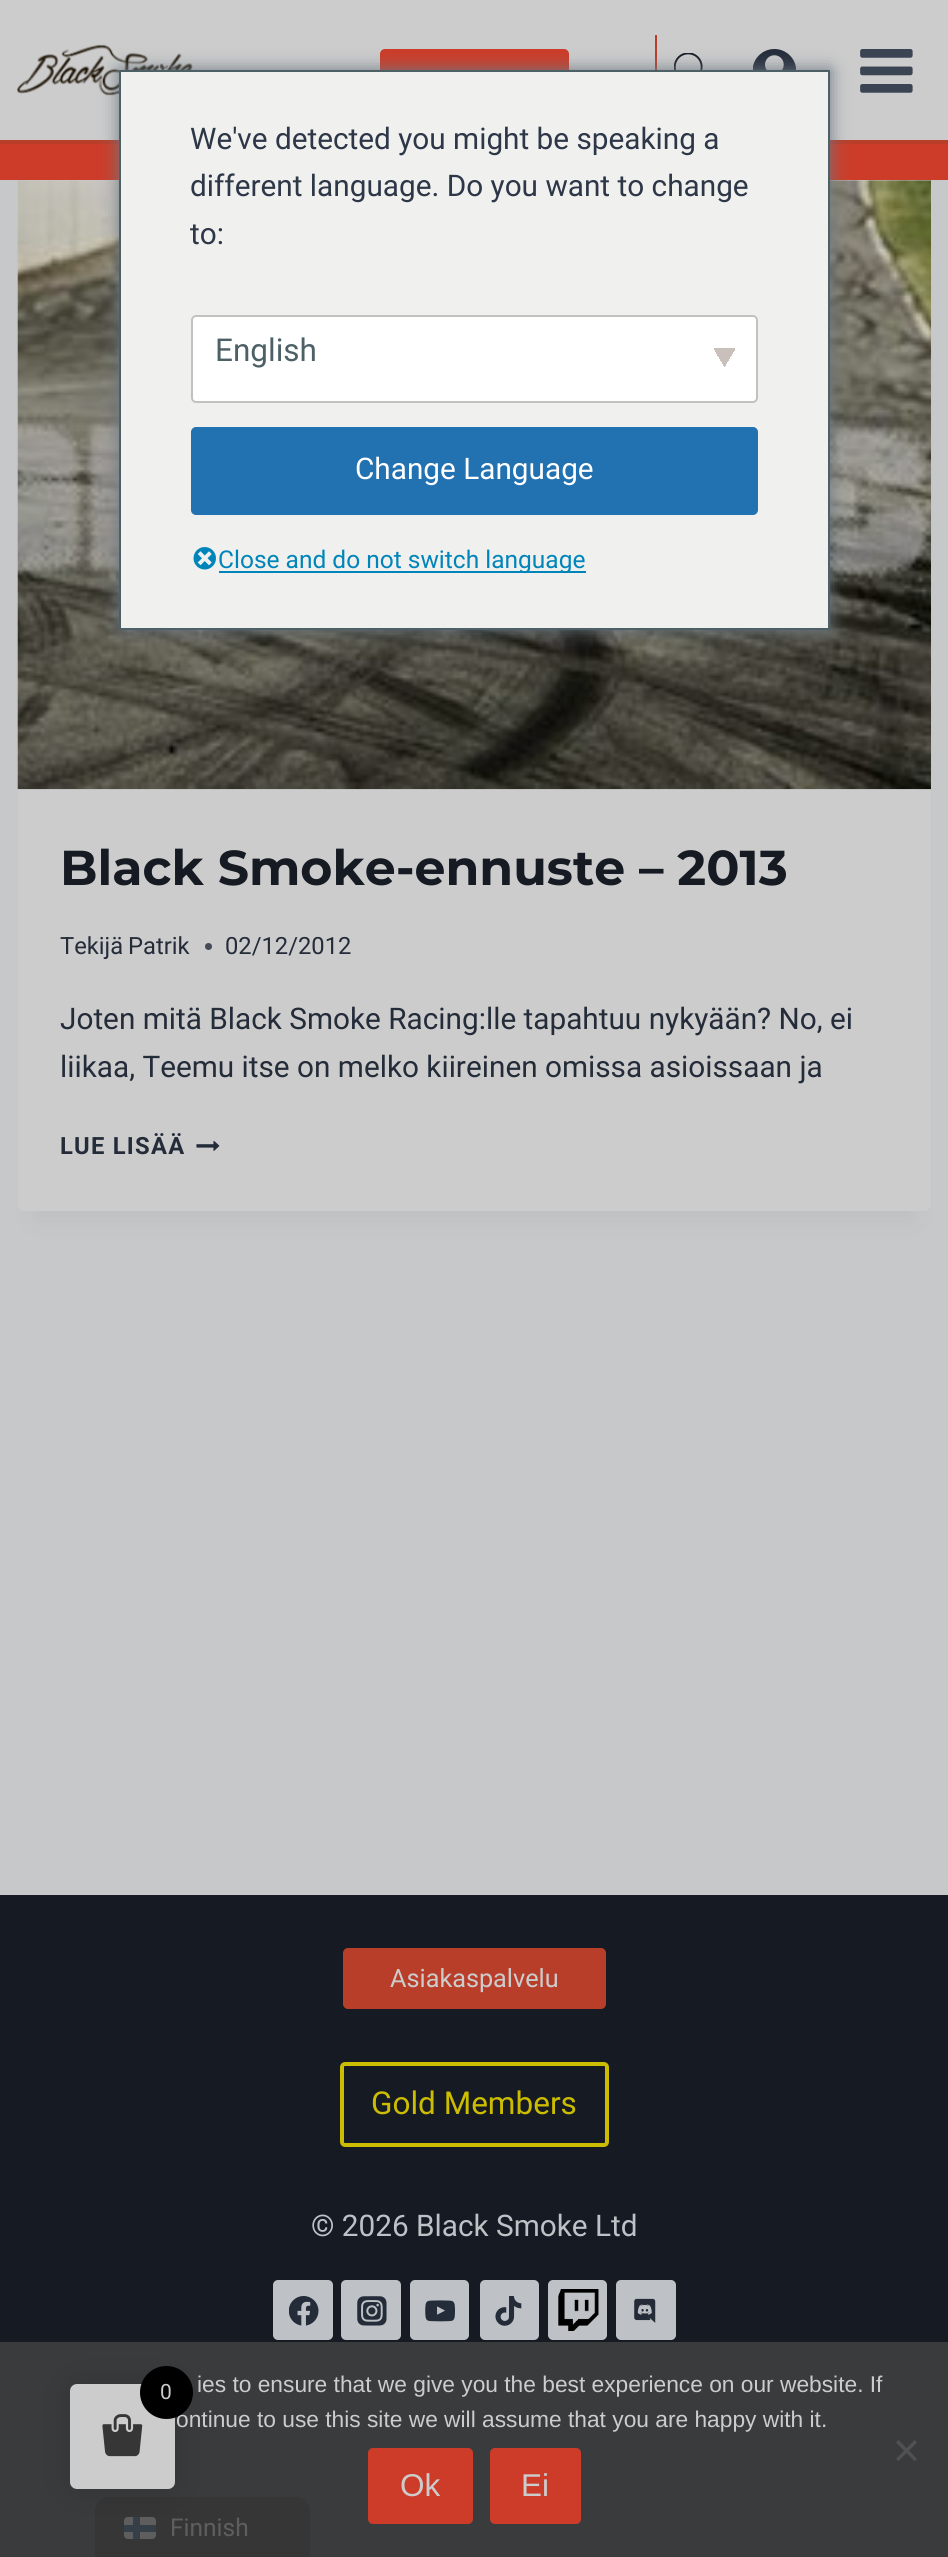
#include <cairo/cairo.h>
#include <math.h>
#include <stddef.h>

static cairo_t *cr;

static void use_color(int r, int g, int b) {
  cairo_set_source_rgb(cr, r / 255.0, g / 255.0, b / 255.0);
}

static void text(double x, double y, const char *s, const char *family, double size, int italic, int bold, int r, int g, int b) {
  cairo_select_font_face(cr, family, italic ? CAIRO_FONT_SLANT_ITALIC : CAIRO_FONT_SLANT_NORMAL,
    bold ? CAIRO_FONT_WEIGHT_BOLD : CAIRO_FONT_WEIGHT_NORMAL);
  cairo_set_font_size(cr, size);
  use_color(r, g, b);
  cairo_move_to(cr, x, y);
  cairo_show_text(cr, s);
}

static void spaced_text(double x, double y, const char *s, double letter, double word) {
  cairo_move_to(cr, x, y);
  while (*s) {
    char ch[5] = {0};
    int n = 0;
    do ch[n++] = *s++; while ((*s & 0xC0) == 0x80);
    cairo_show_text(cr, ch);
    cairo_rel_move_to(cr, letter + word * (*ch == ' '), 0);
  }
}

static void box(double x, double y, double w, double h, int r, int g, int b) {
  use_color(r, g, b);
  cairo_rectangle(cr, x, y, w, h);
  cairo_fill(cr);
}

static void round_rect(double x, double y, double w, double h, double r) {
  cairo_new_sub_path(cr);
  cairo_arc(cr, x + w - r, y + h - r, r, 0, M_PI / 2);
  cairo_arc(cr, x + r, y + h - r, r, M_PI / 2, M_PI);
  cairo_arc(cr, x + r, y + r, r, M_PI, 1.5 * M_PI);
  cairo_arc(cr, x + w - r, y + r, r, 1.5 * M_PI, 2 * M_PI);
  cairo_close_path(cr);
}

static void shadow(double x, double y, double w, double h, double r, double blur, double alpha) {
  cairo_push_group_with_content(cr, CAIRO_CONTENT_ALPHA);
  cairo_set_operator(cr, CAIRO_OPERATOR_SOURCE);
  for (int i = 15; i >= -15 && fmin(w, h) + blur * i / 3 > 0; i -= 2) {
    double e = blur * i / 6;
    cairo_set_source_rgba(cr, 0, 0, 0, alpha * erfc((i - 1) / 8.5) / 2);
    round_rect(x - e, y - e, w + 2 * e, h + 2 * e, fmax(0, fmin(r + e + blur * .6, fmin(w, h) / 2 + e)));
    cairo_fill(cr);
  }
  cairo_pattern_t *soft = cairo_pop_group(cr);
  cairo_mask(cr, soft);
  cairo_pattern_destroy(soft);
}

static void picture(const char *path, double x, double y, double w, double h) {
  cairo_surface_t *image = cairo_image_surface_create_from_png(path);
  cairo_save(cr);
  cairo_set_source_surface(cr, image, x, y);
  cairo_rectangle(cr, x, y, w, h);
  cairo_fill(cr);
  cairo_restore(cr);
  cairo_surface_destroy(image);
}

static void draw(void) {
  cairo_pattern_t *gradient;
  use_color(198, 200, 202);
  cairo_paint(cr);
  box(0, 0, 948, 140, 204, 204, 204);
  box(0, 140, 948, 4, 185, 62, 42);
  picture("img_02.png", 17, 44, 176, 52);
  use_color(204, 60, 41);
  round_rect(380, 49, 189, 44, 5);
  cairo_fill(cr);
  box(655, 35, 2, 35, 185, 62, 42);
  picture("img_03.png", 674, 53, 29, 17);
  picture("img_04.png", 753, 49, 43, 21);
  box(0, 144, 948, 36, 204, 60, 41);
  use_color(0, 0, 0);
  shadow(35, 224, 879, 996, 0, 13, 0.05);
  use_color(204, 204, 204);
  round_rect(18, 180, 913, 1031, 7);
  cairo_fill(cr);
  picture("img_06.png", 17, 180, 914, 610);
  use_color(108, 119, 129);
  shadow(119, 70, 711, 560, 0, 9, 1);
  use_color(240, 240, 238);
  cairo_rectangle(cr, 120, 71, 709, 558);
  cairo_fill_preserve(cr);
  use_color(76, 96, 102);
  cairo_stroke(cr);
  use_color(255, 255, 255);
  round_rect(191, 315, 567, 88, 5);
  cairo_fill(cr);
  gradient = cairo_pattern_create_linear(721, 354, 738, 364);
  cairo_pattern_add_color_stop_rgba(gradient, 0.5, 0.788, 0.753, 0.733, 1);
  cairo_pattern_add_color_stop_rgba(gradient, 0.5, 1, 1, 1, 1);
  cairo_set_source(cr, gradient);
  cairo_pattern_destroy(gradient);
  cairo_rectangle(cr, 725, 348, 10, 18);
  cairo_fill(cr);
  gradient = cairo_pattern_create_linear(711, 364, 728, 354);
  cairo_pattern_add_color_stop_rgba(gradient, 0.5, 1, 1, 1, 1);
  cairo_pattern_add_color_stop_rgba(gradient, 0.5, 0.788, 0.753, 0.733, 1);
  cairo_set_source(cr, gradient);
  cairo_pattern_destroy(gradient);
  cairo_rectangle(cr, 714, 348, 11, 19);
  cairo_fill(cr);
  round_rect(192, 316, 565, 86, 4);
  use_color(193, 193, 193);
  cairo_stroke(cr);
  use_color(34, 113, 177);
  round_rect(192, 428, 565, 86, 4);
  cairo_fill_preserve(cr);
  cairo_stroke(cr);
  picture("img_01.png", 193, 547, 23, 23);
  box(219, 571, 367, 2, 0, 133, 186);
  picture("img_05.png", 860, 49, 53, 44);
  use_color(70, 76, 87);
  cairo_arc(cr, 208.5, 946.5, 3.5, 0, 2 * M_PI);
  cairo_fill(cr);
  picture("img_07.png", 196, 1140, 24, 11);
  box(0, 1895, 948, 447, 21, 26, 35);
  use_color(185, 62, 42);
  round_rect(344, 1949, 261, 59, 4);
  cairo_fill_preserve(cr);
  cairo_stroke(cr);
  round_rect(342, 2064, 265, 81, 3);
  use_color(204, 189, 0);
  cairo_set_line_width(cr, 4);
  cairo_stroke(cr);
  box(0, 2342, 948, 215, 58, 59, 61);
  use_color(190, 194, 198);
  round_rect(273, 2280, 60, 60, 5);
  cairo_fill(cr);
  picture("img_08.png", 289, 2296, 30, 30);
  round_rect(341, 2280, 60, 60, 5);
  cairo_fill(cr);
  picture("img_09.png", 357, 2296, 30, 30);
  round_rect(410, 2280, 59, 60, 5);
  cairo_fill(cr);
  picture("img_10.png", 425, 2300, 30, 22);
  round_rect(480, 2280, 59, 60, 5);
  cairo_fill(cr);
  picture("img_11.png", 495, 2296, 27, 30);
  round_rect(548, 2280, 59, 60, 5);
  cairo_fill(cr);
  picture("img_12.png", 558, 2289, 41, 42);
  round_rect(616, 2280, 60, 60, 5);
  cairo_fill(cr);
  picture("img_13.png", 634, 2298, 22, 25);
  use_color(54, 54, 54);
  cairo_new_path(cr);
  cairo_move_to(cr, 109, 2497);
  cairo_line_to(cr, 296, 2497);
  cairo_curve_to(cr, 303.5, 2497, 310, 2503.5, 310, 2511);
  cairo_line_to(cr, 310, 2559);
  cairo_line_to(cr, 95, 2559);
  cairo_line_to(cr, 95, 2511);
  cairo_curve_to(cr, 95, 2503.5, 101.5, 2497, 109, 2497);
  cairo_close_path(cr);
  cairo_fill(cr);
  use_color(94, 94, 94);
  round_rect(124, 2517, 32, 22, 4);
  cairo_fill(cr);
  box(124, 2525, 32, 7, 54, 62, 71);
  box(133, 2517, 7, 22, 54, 62, 71);
  use_color(0, 0, 0);
  shadow(70, 2384, 105, 105, 7, 17.5, 0.15);
  use_color(204, 204, 204);
  round_rect(70, 2384, 105, 105, 7);
  cairo_fill(cr);
  picture("img_14.png", 102, 2414, 41, 43);
  use_color(80, 81, 82);
  cairo_new_path(cr);
  cairo_move_to(cr, 914.5, 2440);
  cairo_line_to(cr, 917, 2442.5);
  cairo_line_to(cr, 898.5, 2461);
  cairo_line_to(cr, 896, 2459);
  cairo_close_path(cr);
  cairo_fill(cr);
  cairo_new_path(cr);
  cairo_move_to(cr, 896, 2442.5);
  cairo_line_to(cr, 898.5, 2440);
  cairo_line_to(cr, 917, 2459);
  cairo_line_to(cr, 914.5, 2461);
  cairo_close_path(cr);
  cairo_fill(cr);
  use_color(204, 60, 41);
  round_rect(368, 2448, 105, 76, 5);
  cairo_fill(cr);
  round_rect(490, 2448, 91, 76, 5);
  cairo_fill(cr);
  text(190, 149, "We've detected you might be speaking a", "Roboto", 29.75, 0, 0, 45, 55, 72);
  text(190, 196, "different language. Do you want to change", "Roboto", 29.75, 0, 0, 45, 55, 72);
  text(190, 244, "to:", "Roboto", 29.75, 0, 0, 45, 55, 72);
  text(215, 361, "English", "Roboto", 31.5, 0, 0, 76, 96, 102);
  text(355, 479, "Change Language", "Roboto", 29.75, 0, 0, 255, 255, 255);
  text(218, 568, "Close and do not switch language", "Roboto", 24.5, 0, 0, 0, 133, 186);
  text(60, 885, "Black Smoke-ennuste – 2013", "Montserrat", 49, 0, 1, 21, 26, 35);
  text(60, 954, "Tekijä", "Roboto", 23.75, 0, 0, 36, 44, 58);
  text(128, 954, "Patrik", "Roboto", 23.75, 0, 0, 36, 44, 58);
  text(225, 954, "02/12/2012", "Roboto", 23.75, 0, 0, 36, 44, 58);
  text(60, 1029, "Joten mitä Black Smoke Racing:lle tapahtuu nykyään? No, ei", "Roboto", 29.75, 0, 0, 36, 44, 58);
  text(60, 1077, "liikaa, Teemu itse on melko kiireinen omissa asioissaan ja", "Roboto", 29.75, 0, 0, 36, 44, 58);
  cairo_select_font_face(cr, "Roboto", CAIRO_FONT_SLANT_NORMAL, CAIRO_FONT_WEIGHT_BOLD);
  cairo_set_font_size(cr, 23.75);
  spaced_text(60, 1154, "LUE LISÄÄ", 1.25, 0);
  text(390, 1987, "Asiakaspalvelu", "Roboto", 25.25, 0, 0, 204, 204, 204);
  text(371, 2114, "Gold Members", "Roboto", 31.5, 0, 0, 204, 189, 0);
  text(311, 2236, "© 2026 Black Smoke Ltd", "Roboto", 29.75, 0, 0, 190, 194, 198);
  text(197, 2392, "ies to ensure that we give you the best experience on our website. If", "Liberation Sans", 22.75, 0, 0, 204, 204, 204);
  text(176, 2427, "ontinue to use this site we will assume that you are happy with it.", "Liberation Sans", 22.75, 0, 0, 204, 204, 204);
  use_color(0, 0, 0);
  cairo_new_path(cr);
  cairo_arc(cr, 166.5, 2392.5, 26.5, 0, 2 * M_PI);
  cairo_fill(cr);
  text(160, 2399, "0", "Roboto", 21, 0, 0, 204, 204, 204);
  text(400, 2496, "Ok", "Liberation Sans", 31.5, 0, 0, 204, 204, 204);
  text(521, 2496, "Ei", "Liberation Sans", 31.5, 0, 0, 204, 204, 204);
  text(170, 2536, "Finnish", "Roboto", 24.5, 0, 0, 94, 94, 94);
}

int main(void) {
  cairo_surface_t *surface = cairo_image_surface_create(CAIRO_FORMAT_RGB24, 948, 2557);
  cr = cairo_create(surface);
  cairo_font_options_t *options = cairo_font_options_create();
  cairo_font_options_set_hint_metrics(options, CAIRO_HINT_METRICS_OFF);
  cairo_font_options_set_hint_style(options, CAIRO_HINT_STYLE_NONE);
  cairo_set_font_options(cr, options);
  cairo_set_miter_limit(cr, 4);
  draw();
  cairo_surface_write_to_png(surface, "out.png");
  cairo_font_options_destroy(options);
  cairo_destroy(cr);
  cairo_surface_destroy(surface);
  return 0;
}
